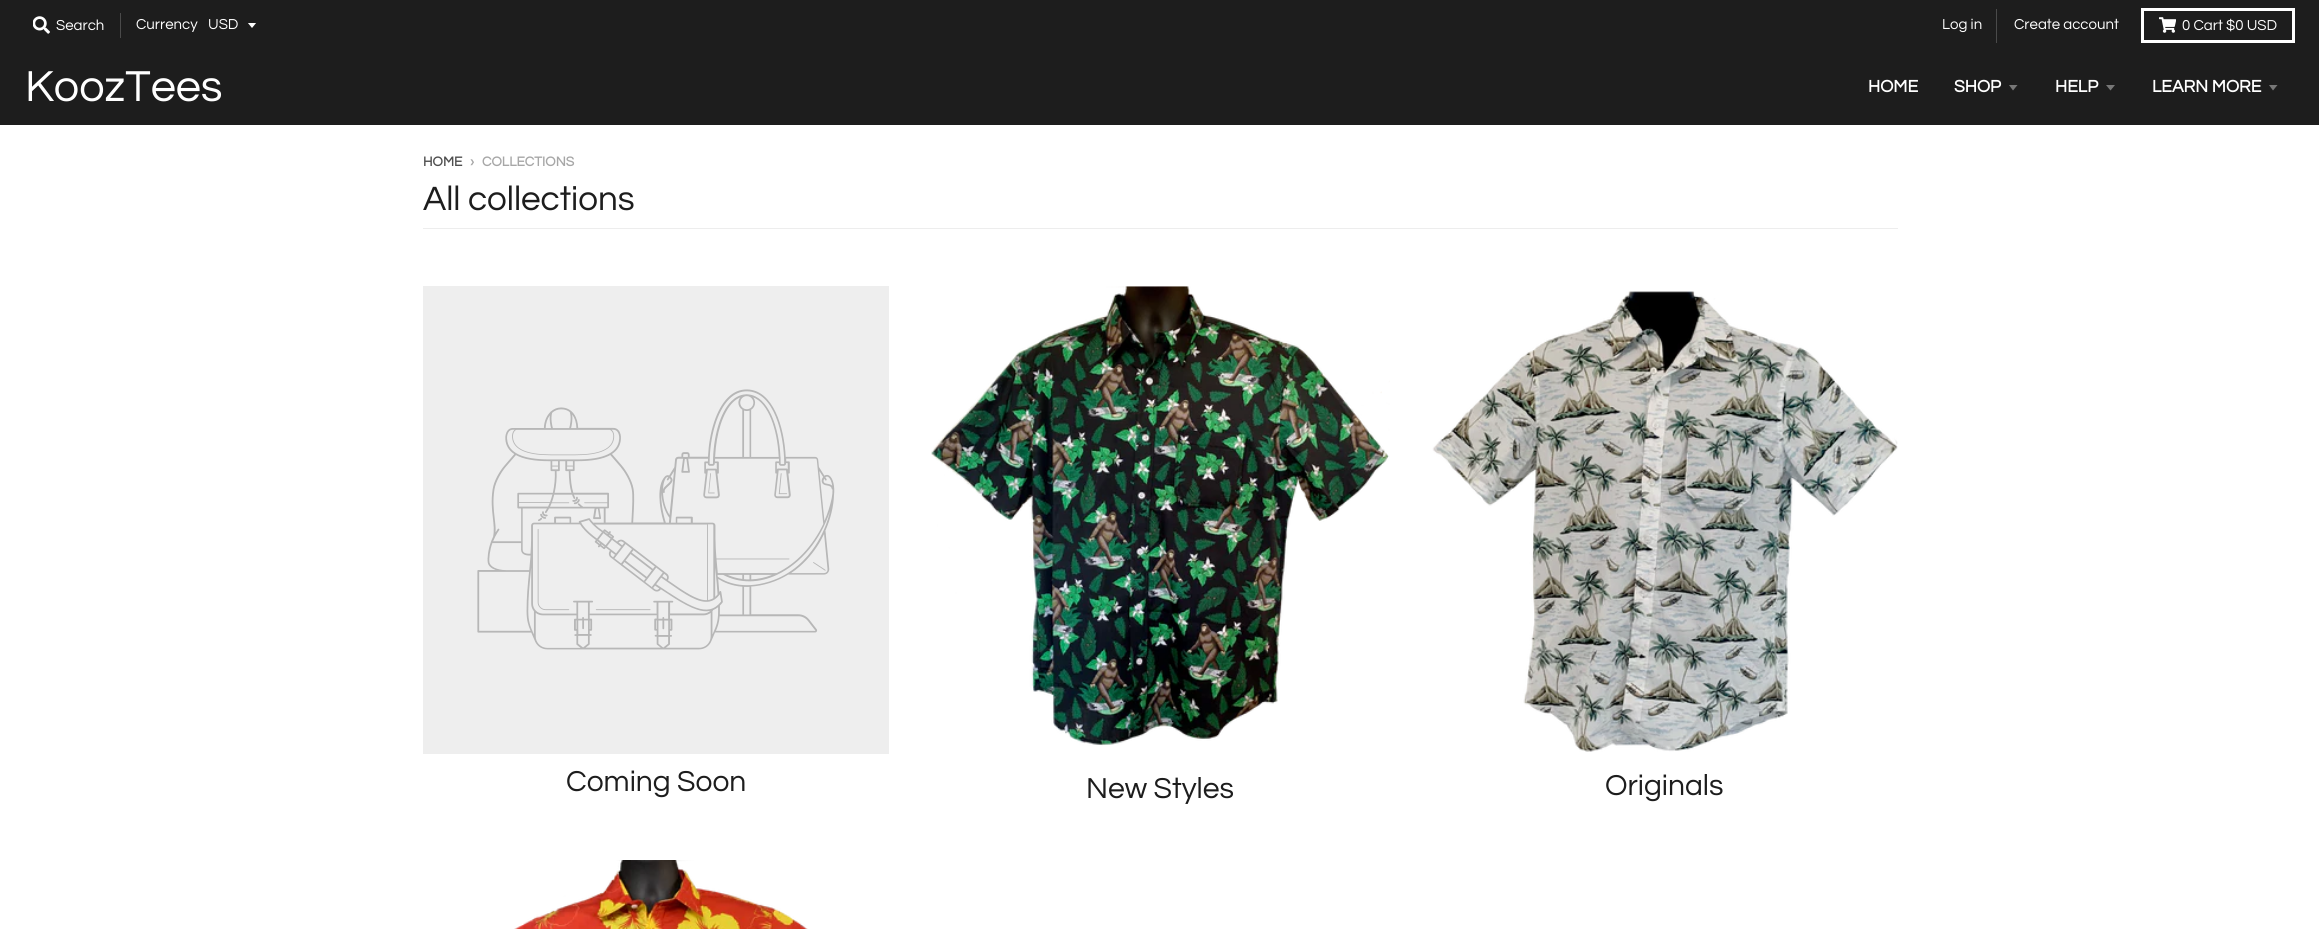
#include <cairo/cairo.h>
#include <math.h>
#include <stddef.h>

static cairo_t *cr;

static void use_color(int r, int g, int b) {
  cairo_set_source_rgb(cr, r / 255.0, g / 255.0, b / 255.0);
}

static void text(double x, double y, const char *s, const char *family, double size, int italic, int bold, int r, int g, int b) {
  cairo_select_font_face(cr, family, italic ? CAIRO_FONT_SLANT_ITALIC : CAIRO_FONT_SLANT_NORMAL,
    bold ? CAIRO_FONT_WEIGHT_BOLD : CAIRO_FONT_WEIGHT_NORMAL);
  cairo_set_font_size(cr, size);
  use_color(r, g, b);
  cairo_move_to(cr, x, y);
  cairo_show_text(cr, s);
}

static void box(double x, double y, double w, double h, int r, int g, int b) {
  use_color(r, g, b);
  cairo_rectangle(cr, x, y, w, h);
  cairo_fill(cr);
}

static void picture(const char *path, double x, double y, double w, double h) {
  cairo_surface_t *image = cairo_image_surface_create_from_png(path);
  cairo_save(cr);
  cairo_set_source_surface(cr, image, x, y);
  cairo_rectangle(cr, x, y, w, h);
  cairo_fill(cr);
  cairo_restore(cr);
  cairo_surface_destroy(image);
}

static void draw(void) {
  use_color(255, 255, 255);
  cairo_paint(cr);
  box(0, 0, 2319, 125, 29, 29, 29);
  picture("img_01.png", 33, 16, 17, 18);
  box(120, 13, 1, 25, 74, 74, 74);
  cairo_save(cr);
  cairo_rectangle(cr, 248, 23, 10, 6);
  cairo_clip(cr);
  use_color(255, 255, 255);
  cairo_new_path(cr);
  cairo_move_to(cr, 247.5, 22.5);
  cairo_line_to(cr, 252, 28);
  cairo_line_to(cr, 256.5, 22.5);
  cairo_close_path(cr);
  cairo_fill(cr);
  cairo_restore(cr);
  box(1996, 9, 1, 34, 74, 74, 74);
  cairo_rectangle(cr, 2142.5, 9.5, 151, 32);
  use_color(255, 255, 255);
  cairo_set_line_width(cr, 3);
  cairo_stroke(cr);
  picture("img_02.png", 2159, 17, 17, 16);
  use_color(119, 119, 119);
  cairo_new_path(cr);
  cairo_move_to(cr, 2009, 85);
  cairo_line_to(cr, 2013, 90.5);
  cairo_line_to(cr, 2017.5, 85);
  cairo_close_path(cr);
  cairo_fill(cr);
  cairo_new_path(cr);
  cairo_move_to(cr, 2106, 85);
  cairo_line_to(cr, 2110.5, 90.5);
  cairo_line_to(cr, 2115, 85);
  cairo_close_path(cr);
  cairo_fill(cr);
  cairo_new_path(cr);
  cairo_move_to(cr, 2269, 85);
  cairo_line_to(cr, 2273, 90.5);
  cairo_line_to(cr, 2277.5, 85);
  cairo_close_path(cr);
  cairo_fill(cr);
  box(423, 228, 1475, 1, 237, 237, 237);
  box(423, 286, 466, 468, 238, 238, 238);
  picture("img_03.png", 477, 389, 358, 261);
  picture("img_04.png", 931, 286, 459, 460);
  picture("img_05.png", 1432, 291, 466, 461);
  picture("img_06.png", 514, 860, 294, 69);
  text(56, 30, "Search", "Questrial", 15, 0, 0, 255, 255, 255);
  text(136, 29, "Currency", "Questrial", 15, 0, 0, 255, 255, 255);
  text(208, 29, "USD", "Questrial", 15, 0, 0, 255, 255, 255);
  text(1942, 29, "Log in", "Questrial", 15, 0, 0, 255, 255, 255);
  text(2014, 29, "Create account", "Questrial", 15, 0, 0, 255, 255, 255);
  text(2182, 30, "0 Cart $0 USD", "Questrial", 15, 0, 0, 255, 255, 255);
  text(25, 101, "KoozTees", "Questrial", 45, 0, 0, 255, 255, 255);
  text(1868, 92, "HOME", "Questrial", 17.5, 0, 1, 255, 255, 255);
  text(1954, 92, "SHOP", "Questrial", 17.5, 0, 1, 255, 255, 255);
  text(2055, 92, "HELP", "Questrial", 17.5, 0, 1, 255, 255, 255);
  text(2152, 92, "LEARN MORE", "Questrial", 17.5, 0, 1, 255, 255, 255);
  text(423, 166, "HOME", "Questrial", 13.75, 0, 1, 79, 79, 79);
  text(470, 166, "›", "Questrial", 13.75, 0, 1, 167, 167, 167);
  text(482, 166, "COLLECTIONS", "Questrial", 13.75, 0, 1, 167, 167, 167);
  text(423, 210, "All collections", "Questrial", 35, 0, 0, 29, 29, 29);
  text(566, 791, "Coming Soon", "Questrial", 30, 0, 0, 29, 29, 29);
  text(1086, 798, "New Styles", "Questrial", 30, 0, 0, 29, 29, 29);
  text(1605, 795, "Originals", "Questrial", 30, 0, 0, 29, 29, 29);
}

int main(void) {
  cairo_surface_t *surface = cairo_image_surface_create(CAIRO_FORMAT_RGB24, 2319, 929);
  cr = cairo_create(surface);
  cairo_font_options_t *options = cairo_font_options_create();
  cairo_font_options_set_hint_metrics(options, CAIRO_HINT_METRICS_OFF);
  cairo_font_options_set_hint_style(options, CAIRO_HINT_STYLE_NONE);
  cairo_set_font_options(cr, options);
  cairo_set_miter_limit(cr, 4);
  draw();
  cairo_surface_write_to_png(surface, "out.png");
  cairo_font_options_destroy(options);
  cairo_destroy(cr);
  cairo_surface_destroy(surface);
  return 0;
}
